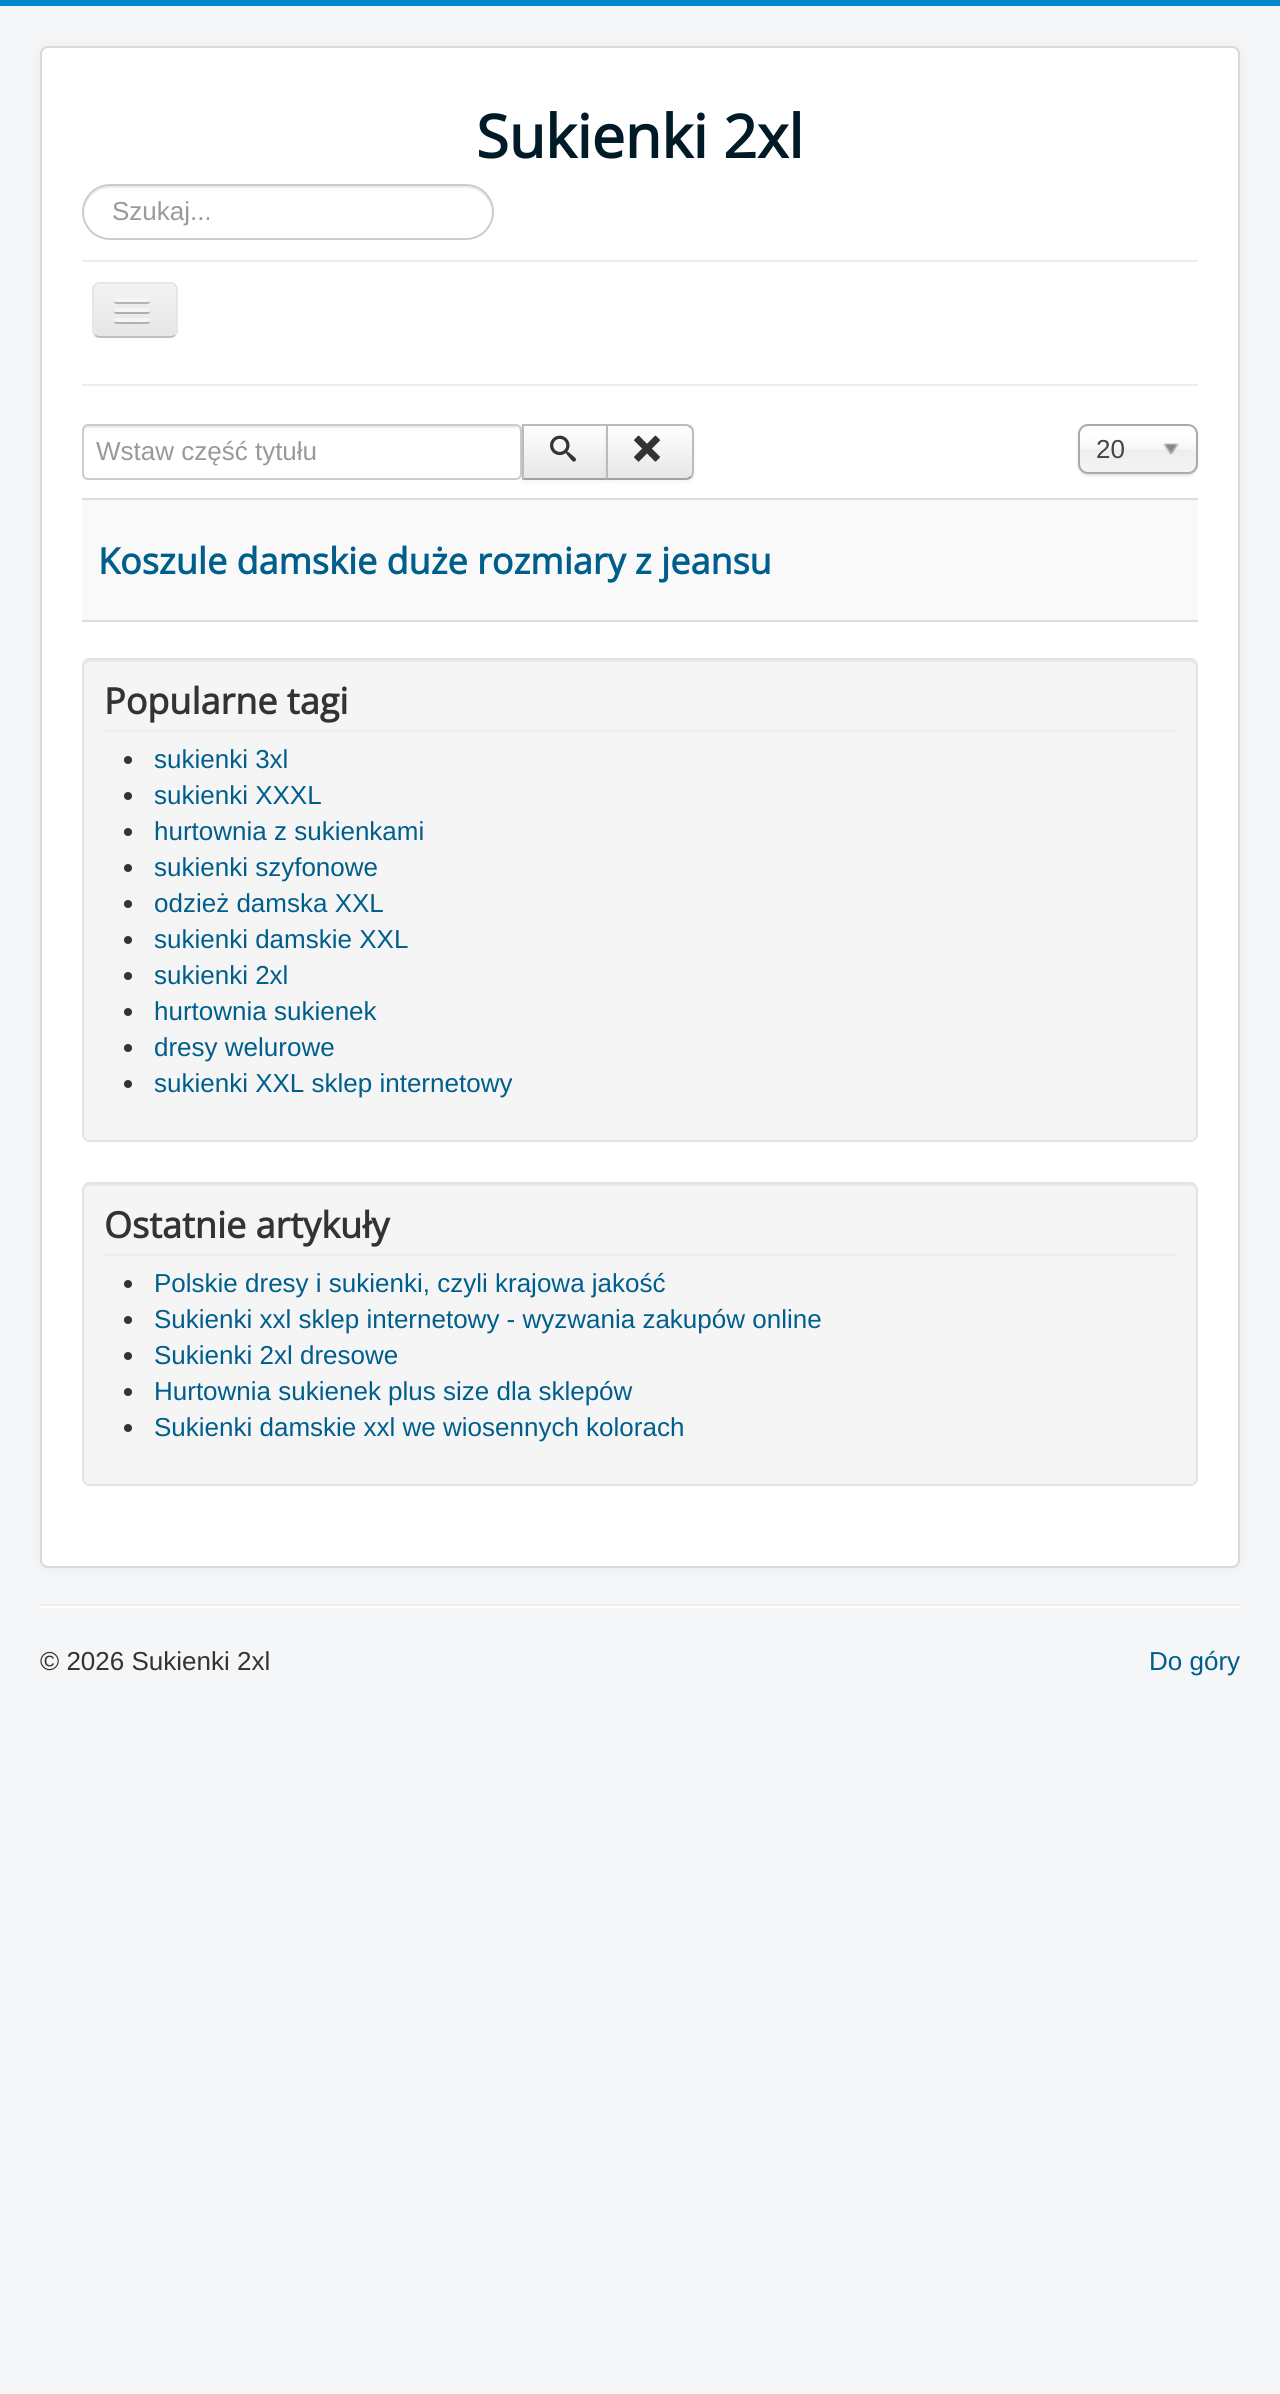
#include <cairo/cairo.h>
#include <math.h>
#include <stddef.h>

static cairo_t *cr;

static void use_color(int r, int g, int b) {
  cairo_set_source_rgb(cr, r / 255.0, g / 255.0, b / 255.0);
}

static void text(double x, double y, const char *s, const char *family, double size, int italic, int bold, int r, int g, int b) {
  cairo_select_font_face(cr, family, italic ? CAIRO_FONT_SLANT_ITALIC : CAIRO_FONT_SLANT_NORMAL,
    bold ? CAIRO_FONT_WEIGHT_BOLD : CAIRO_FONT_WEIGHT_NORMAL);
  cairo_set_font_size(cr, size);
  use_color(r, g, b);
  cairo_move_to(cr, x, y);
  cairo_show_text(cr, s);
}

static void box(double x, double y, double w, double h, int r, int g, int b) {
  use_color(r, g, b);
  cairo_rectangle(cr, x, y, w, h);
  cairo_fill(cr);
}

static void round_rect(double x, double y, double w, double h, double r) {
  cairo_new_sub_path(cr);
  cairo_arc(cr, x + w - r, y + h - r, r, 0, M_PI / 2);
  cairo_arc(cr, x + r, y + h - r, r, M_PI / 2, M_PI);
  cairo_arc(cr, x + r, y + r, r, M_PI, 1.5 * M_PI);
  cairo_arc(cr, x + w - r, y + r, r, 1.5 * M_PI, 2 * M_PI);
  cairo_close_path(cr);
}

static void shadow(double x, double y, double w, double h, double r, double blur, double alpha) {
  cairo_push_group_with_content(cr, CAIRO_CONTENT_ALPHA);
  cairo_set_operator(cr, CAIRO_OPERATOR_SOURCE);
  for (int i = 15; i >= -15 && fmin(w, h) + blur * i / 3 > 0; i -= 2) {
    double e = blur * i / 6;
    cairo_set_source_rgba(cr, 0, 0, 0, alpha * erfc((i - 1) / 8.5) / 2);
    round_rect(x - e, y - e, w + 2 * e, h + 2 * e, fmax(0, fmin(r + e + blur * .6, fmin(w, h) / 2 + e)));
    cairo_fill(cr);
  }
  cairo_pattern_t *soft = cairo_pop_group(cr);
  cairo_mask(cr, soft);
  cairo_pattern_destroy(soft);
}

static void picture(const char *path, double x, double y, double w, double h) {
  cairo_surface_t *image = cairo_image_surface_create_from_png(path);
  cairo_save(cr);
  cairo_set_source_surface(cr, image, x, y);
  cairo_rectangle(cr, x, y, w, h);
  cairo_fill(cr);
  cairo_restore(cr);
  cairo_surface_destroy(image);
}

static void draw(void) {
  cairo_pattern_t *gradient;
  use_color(244, 246, 247);
  cairo_paint(cr);
  box(0, 0, 1280, 6, 0, 136, 204);
  use_color(0, 0, 0);
  shadow(40, 46, 1200, 1522, 8, 6, 0.05);
  use_color(255, 255, 255);
  round_rect(40, 46, 1200, 1522, 8);
  cairo_fill(cr);
  round_rect(41, 47, 1198, 1520, 7);
  cairo_set_source_rgba(cr, 0, 0, 0, 0.15);
  cairo_stroke(cr);
  use_color(236, 236, 236);
  cairo_new_path(cr);
  cairo_move_to(cr, 110, 188);
  cairo_line_to(cr, 466, 188);
  cairo_curve_to(cr, 480, 188, 491, 199, 492, 213);
  cairo_curve_to(cr, 493, 198, 481, 186, 466, 186);
  cairo_line_to(cr, 110, 186);
  cairo_curve_to(cr, 95, 186, 83, 198, 84, 213);
  cairo_curve_to(cr, 85, 199, 96, 188, 110, 188);
  cairo_close_path(cr);
  cairo_fill(cr);
  round_rect(83, 185, 410, 54, 27);
  use_color(204, 204, 204);
  cairo_stroke(cr);
  box(82, 260, 1116, 2, 236, 236, 236);
  box(82, 384, 1116, 2, 236, 236, 236);
  cairo_save(cr);
  round_rect(92, 282, 86, 56, 8);
  cairo_clip(cr);
  gradient = cairo_pattern_create_linear(135, 284, 135, 336);
  cairo_pattern_add_color_stop_rgba(gradient, 0, 0.949, 0.949, 0.949, 1);
  cairo_pattern_add_color_stop_rgba(gradient, 1, 0.902, 0.902, 0.902, 1);
  cairo_set_source(cr, gradient);
  cairo_pattern_destroy(gradient);
  cairo_rectangle(cr, 92, 284, 86, 52);
  cairo_fill(cr);
  cairo_restore(cr);
  use_color(243, 243, 243);
  cairo_new_path(cr);
  cairo_move_to(cr, 100, 286);
  cairo_line_to(cr, 170, 286);
  cairo_curve_to(cr, 173, 286, 176, 289, 176, 292);
  cairo_curve_to(cr, 176, 281, 167, 284, 158, 284);
  cairo_line_to(cr, 112, 284);
  cairo_curve_to(cr, 103, 284, 94, 281, 94, 292);
  cairo_curve_to(cr, 94, 289, 97, 286, 100, 286);
  cairo_close_path(cr);
  cairo_fill(cr);
  cairo_new_path(cr);
  cairo_move_to(cr, 175, 335);
  cairo_curve_to(cr, 173.5, 336.5, 172, 337, 170, 337);
  cairo_line_to(cr, 100, 337);
  cairo_curve_to(cr, 98, 337, 96.5, 336.5, 95, 335);
  use_color(191, 191, 191);
  cairo_stroke(cr);
  cairo_new_path(cr);
  cairo_move_to(cr, 95, 335);
  cairo_curve_to(cr, 93.5, 333.5, 93, 332, 93, 330);
  cairo_line_to(cr, 93, 290);
  cairo_curve_to(cr, 93, 288, 93.5, 286.5, 95, 285);
  cairo_curve_to(cr, 96.5, 283.5, 98, 283, 100, 283);
  cairo_line_to(cr, 170, 283);
  cairo_curve_to(cr, 172, 283, 173.5, 283.5, 175, 285);
  cairo_curve_to(cr, 176.5, 286.5, 177, 288, 177, 290);
  cairo_line_to(cr, 177, 330);
  cairo_curve_to(cr, 177, 332, 176.5, 333.5, 175, 335);
  use_color(230, 230, 230);
  cairo_stroke(cr);
  use_color(179, 179, 179);
  cairo_new_path(cr);
  cairo_move_to(cr, 114.5, 301);
  cairo_curve_to(cr, 112, 305, 121, 304, 121.5, 304);
  cairo_line_to(cr, 142.5, 304);
  cairo_curve_to(cr, 143, 304, 152, 305, 149.5, 301);
  cairo_curve_to(cr, 149.5, 301.5, 148.5, 302, 148, 302);
  cairo_line_to(cr, 116, 302);
  cairo_curve_to(cr, 115.5, 302, 114.5, 301.5, 114.5, 301);
  cairo_close_path(cr);
  cairo_fill(cr);
  use_color(245, 245, 245);
  round_rect(114, 298, 36, 4, 2);
  cairo_fill(cr);
  use_color(176, 176, 176);
  cairo_new_path(cr);
  cairo_move_to(cr, 114.5, 311);
  cairo_curve_to(cr, 112, 315, 121, 314, 121.5, 314);
  cairo_line_to(cr, 142.5, 314);
  cairo_curve_to(cr, 143, 314, 152, 315, 149.5, 311);
  cairo_curve_to(cr, 149.5, 311.5, 148.5, 312, 148, 312);
  cairo_line_to(cr, 116, 312);
  cairo_curve_to(cr, 115.5, 312, 114.5, 311.5, 114.5, 311);
  cairo_close_path(cr);
  cairo_fill(cr);
  use_color(245, 245, 245);
  round_rect(114, 308, 36, 4, 2);
  cairo_fill(cr);
  use_color(175, 175, 175);
  cairo_new_path(cr);
  cairo_move_to(cr, 114.5, 321);
  cairo_curve_to(cr, 112, 325, 121, 324, 121.5, 324);
  cairo_line_to(cr, 142.5, 324);
  cairo_curve_to(cr, 143, 324, 152, 325, 149.5, 321);
  cairo_curve_to(cr, 149.5, 321.5, 148.5, 322, 148, 322);
  cairo_line_to(cr, 116, 322);
  cairo_curve_to(cr, 115.5, 322, 114.5, 321.5, 114.5, 321);
  cairo_close_path(cr);
  cairo_fill(cr);
  use_color(245, 245, 245);
  round_rect(114, 318, 36, 4, 2);
  cairo_fill(cr);
  use_color(236, 236, 236);
  cairo_new_path(cr);
  cairo_move_to(cr, 88, 428);
  cairo_line_to(cr, 516, 428);
  cairo_curve_to(cr, 518, 428, 520, 430, 520, 432);
  cairo_line_to(cr, 520, 430);
  cairo_curve_to(cr, 520, 428, 518, 426, 516, 426);
  cairo_line_to(cr, 88, 426);
  cairo_curve_to(cr, 86, 426, 84, 428, 84, 430);
  cairo_line_to(cr, 84, 432);
  cairo_curve_to(cr, 84, 430, 86, 428, 88, 428);
  cairo_close_path(cr);
  cairo_fill(cr);
  round_rect(83, 425, 438, 54, 5);
  use_color(204, 204, 204);
  cairo_stroke(cr);
  use_color(0, 0, 0);
  shadow(522, 426, 86, 56, 0, 2, 0.05);
  gradient = cairo_pattern_create_linear(565, 426, 565, 478);
  cairo_pattern_add_color_stop_rgba(gradient, 0, 1, 1, 1, 1);
  cairo_pattern_add_color_stop_rgba(gradient, 1, 0.902, 0.902, 0.902, 1);
  cairo_set_source(cr, gradient);
  cairo_pattern_destroy(gradient);
  cairo_rectangle(cr, 524, 426, 82, 52);
  cairo_fill(cr);
  box(522, 424, 86, 2, 187, 187, 187);
  box(522, 478, 86, 2, 162, 162, 162);
  box(522, 424, 2, 56, 187, 187, 187);
  picture("img_01.png", 550, 435, 26, 27);
  use_color(0, 0, 0);
  shadow(606, 426, 88, 56, 8, 2, 0.05);
  cairo_save(cr);
  cairo_new_path(cr);
  cairo_move_to(cr, 606, 424);
  cairo_line_to(cr, 686, 424);
  cairo_curve_to(cr, 690.5, 424, 694, 427.5, 694, 432);
  cairo_line_to(cr, 694, 472);
  cairo_curve_to(cr, 694, 476.5, 690.5, 480, 686, 480);
  cairo_line_to(cr, 606, 480);
  cairo_close_path(cr);
  cairo_clip(cr);
  gradient = cairo_pattern_create_linear(650, 426, 650, 478);
  cairo_pattern_add_color_stop_rgba(gradient, 0, 1, 1, 1, 1);
  cairo_pattern_add_color_stop_rgba(gradient, 1, 0.902, 0.902, 0.902, 1);
  cairo_set_source(cr, gradient);
  cairo_pattern_destroy(gradient);
  cairo_rectangle(cr, 608, 426, 86, 52);
  cairo_fill(cr);
  cairo_restore(cr);
  use_color(187, 187, 187);
  cairo_new_path(cr);
  cairo_move_to(cr, 606, 424);
  cairo_line_to(cr, 608, 426);
  cairo_line_to(cr, 687, 426);
  cairo_line_to(cr, 690, 428);
  cairo_line_to(cr, 692, 426);
  cairo_curve_to(cr, 690, 425, 688, 424, 686, 424);
  cairo_close_path(cr);
  cairo_fill(cr);
  cairo_new_path(cr);
  cairo_move_to(cr, 694, 472);
  cairo_line_to(cr, 694, 432);
  cairo_curve_to(cr, 694, 430, 693, 428, 692, 426);
  cairo_line_to(cr, 690, 428);
  cairo_curve_to(cr, 691, 429, 692, 430, 692, 432);
  cairo_line_to(cr, 692, 472);
  cairo_curve_to(cr, 692, 474, 691, 475, 690, 476);
  cairo_line_to(cr, 692, 478);
  cairo_curve_to(cr, 693, 476, 694, 474, 694, 472);
  cairo_close_path(cr);
  cairo_fill(cr);
  use_color(162, 162, 162);
  cairo_new_path(cr);
  cairo_move_to(cr, 686, 480);
  cairo_curve_to(cr, 688, 480, 690, 479, 692, 478);
  cairo_line_to(cr, 690, 476);
  cairo_line_to(cr, 687, 478);
  cairo_line_to(cr, 608, 478);
  cairo_line_to(cr, 606, 480);
  cairo_close_path(cr);
  cairo_fill(cr);
  use_color(187, 187, 187);
  cairo_new_path(cr);
  cairo_move_to(cr, 606, 424);
  cairo_line_to(cr, 606, 480);
  cairo_line_to(cr, 608, 478);
  cairo_line_to(cr, 608, 426);
  cairo_close_path(cr);
  cairo_fill(cr);
  picture("img_02.png", 634, 435, 26, 27);
  use_color(0, 0, 0);
  shadow(1078, 426, 120, 50, 10, 1, 0.1);
  gradient = cairo_pattern_create_linear(1138, 426, 1138, 472);
  cairo_pattern_add_color_stop_rgba(gradient, 0.2, 1, 1, 1, 1);
  cairo_pattern_add_color_stop_rgba(gradient, 0.5, 0.965, 0.965, 0.965, 1);
  cairo_pattern_add_color_stop_rgba(gradient, 0.52, 0.933, 0.933, 0.933, 1);
  cairo_pattern_add_color_stop_rgba(gradient, 1, 0.957, 0.957, 0.957, 1);
  cairo_set_source(cr, gradient);
  cairo_pattern_destroy(gradient);
  round_rect(1080, 426, 116, 46, 8);
  cairo_fill(cr);
  round_rect(1079, 425, 118, 48, 9);
  use_color(170, 170, 170);
  cairo_stroke(cr);
  picture("img_03.png", 1163, 443, 16, 12);
  box(82, 498, 1116, 2, 221, 221, 221);
  box(82, 500, 1116, 120, 249, 249, 249);
  box(82, 620, 1116, 2, 221, 221, 221);
  use_color(245, 245, 245);
  round_rect(82, 658, 1116, 484, 8);
  cairo_fill(cr);
  use_color(233, 233, 233);
  cairo_new_path(cr);
  cairo_move_to(cr, 90, 662);
  cairo_line_to(cr, 1190, 662);
  cairo_curve_to(cr, 1193, 662, 1196, 665, 1196, 668);
  cairo_line_to(cr, 1196, 666);
  cairo_curve_to(cr, 1196, 663, 1193, 660, 1190, 660);
  cairo_line_to(cr, 90, 660);
  cairo_curve_to(cr, 87, 660, 84, 663, 84, 666);
  cairo_line_to(cr, 84, 668);
  cairo_curve_to(cr, 84, 665, 87, 662, 90, 662);
  cairo_close_path(cr);
  cairo_fill(cr);
  round_rect(83, 659, 1114, 482, 7);
  use_color(227, 227, 227);
  cairo_stroke(cr);
  box(104, 730, 1072, 2, 238, 238, 238);
  use_color(51, 51, 51);
  cairo_arc(cr, 128, 760, 4, 0, 2 * M_PI);
  cairo_fill(cr);
  cairo_arc(cr, 128, 796, 4, 0, 2 * M_PI);
  cairo_fill(cr);
  cairo_arc(cr, 128, 832, 4, 0, 2 * M_PI);
  cairo_fill(cr);
  cairo_arc(cr, 128, 868, 4, 0, 2 * M_PI);
  cairo_fill(cr);
  cairo_arc(cr, 128, 904, 4, 0, 2 * M_PI);
  cairo_fill(cr);
  cairo_arc(cr, 128, 940, 4, 0, 2 * M_PI);
  cairo_fill(cr);
  cairo_arc(cr, 128, 976, 4, 0, 2 * M_PI);
  cairo_fill(cr);
  cairo_arc(cr, 128, 1012, 4, 0, 2 * M_PI);
  cairo_fill(cr);
  cairo_arc(cr, 128, 1048, 4, 0, 2 * M_PI);
  cairo_fill(cr);
  cairo_arc(cr, 128, 1084, 4, 0, 2 * M_PI);
  cairo_fill(cr);
  use_color(245, 245, 245);
  round_rect(82, 1182, 1116, 304, 8);
  cairo_fill(cr);
  use_color(233, 233, 233);
  cairo_new_path(cr);
  cairo_move_to(cr, 90, 1186);
  cairo_line_to(cr, 1190, 1186);
  cairo_curve_to(cr, 1193, 1186, 1196, 1189, 1196, 1192);
  cairo_line_to(cr, 1196, 1190);
  cairo_curve_to(cr, 1196, 1187, 1193, 1184, 1190, 1184);
  cairo_line_to(cr, 90, 1184);
  cairo_curve_to(cr, 87, 1184, 84, 1187, 84, 1190);
  cairo_line_to(cr, 84, 1192);
  cairo_curve_to(cr, 84, 1189, 87, 1186, 90, 1186);
  cairo_close_path(cr);
  cairo_fill(cr);
  round_rect(83, 1183, 1114, 302, 7);
  use_color(227, 227, 227);
  cairo_stroke(cr);
  box(104, 1254, 1072, 2, 238, 238, 238);
  use_color(51, 51, 51);
  cairo_arc(cr, 128, 1284, 4, 0, 2 * M_PI);
  cairo_fill(cr);
  cairo_arc(cr, 128, 1320, 4, 0, 2 * M_PI);
  cairo_fill(cr);
  cairo_arc(cr, 128, 1356, 4, 0, 2 * M_PI);
  cairo_fill(cr);
  cairo_arc(cr, 128, 1392, 4, 0, 2 * M_PI);
  cairo_fill(cr);
  cairo_arc(cr, 128, 1428, 4, 0, 2 * M_PI);
  cairo_fill(cr);
  box(40, 1604, 1200, 2, 238, 238, 238);
  box(40, 1606, 1200, 2, 255, 255, 255);
  text(476, 158, "Sukienki 2xl", "Open Sans", 59.5, 0, 1, 0, 26, 39);
  text(112, 220, "Szukaj...", "Liberation Sans", 26, 0, 0, 153, 153, 153);
  text(96, 460, "Wstaw część tytułu", "Liberation Sans", 26, 0, 0, 153, 153, 153);
  text(1096, 458, "20", "Liberation Sans", 26, 0, 0, 68, 68, 68);
  text(98, 574, "Koszule damskie duże rozmiary z jeansu", "Open Sans", 36, 0, 1, 0, 94, 141);
  text(104, 714, "Popularne tagi", "Open Sans", 36, 0, 1, 51, 51, 51);
  text(154, 768, "sukienki 3xl", "Liberation Sans", 26, 0, 0, 0, 94, 141);
  text(154, 804, "sukienki XXXL", "Liberation Sans", 26, 0, 0, 0, 94, 141);
  text(154, 840, "hurtownia z sukienkami", "Liberation Sans", 26, 0, 0, 0, 94, 141);
  text(154, 876, "sukienki szyfonowe", "Liberation Sans", 26, 0, 0, 0, 94, 141);
  text(154, 912, "odzież damska XXL", "Liberation Sans", 26, 0, 0, 0, 94, 141);
  text(154, 948, "sukienki damskie XXL", "Liberation Sans", 26, 0, 0, 0, 94, 141);
  text(154, 984, "sukienki 2xl", "Liberation Sans", 26, 0, 0, 0, 94, 141);
  text(154, 1020, "hurtownia sukienek", "Liberation Sans", 26, 0, 0, 0, 94, 141);
  text(154, 1056, "dresy welurowe", "Liberation Sans", 26, 0, 0, 0, 94, 141);
  text(154, 1092, "sukienki XXL sklep internetowy", "Liberation Sans", 26, 0, 0, 0, 94, 141);
  text(104, 1238, "Ostatnie artykuły", "Open Sans", 36, 0, 1, 51, 51, 51);
  text(154, 1292, "Polskie dresy i sukienki, czyli krajowa jakość", "Liberation Sans", 26, 0, 0, 0, 94, 141);
  text(154, 1328, "Sukienki xxl sklep internetowy - wyzwania zakupów online", "Liberation Sans", 26, 0, 0, 0, 94, 141);
  text(154, 1364, "Sukienki 2xl dresowe", "Liberation Sans", 26, 0, 0, 0, 94, 141);
  text(154, 1400, "Hurtownia sukienek plus size dla sklepów", "Liberation Sans", 26, 0, 0, 0, 94, 141);
  text(154, 1436, "Sukienki damskie xxl we wiosennych kolorach", "Liberation Sans", 26, 0, 0, 0, 94, 141);
  text(40, 1670, "© 2026 Sukienki 2xl", "Liberation Sans", 26, 0, 0, 51, 51, 51);
  text(1149, 1670, "Do góry", "Liberation Sans", 26, 0, 0, 0, 94, 141);
}

int main(void) {
  cairo_surface_t *surface = cairo_image_surface_create(CAIRO_FORMAT_RGB24, 1280, 2394);
  cr = cairo_create(surface);
  cairo_font_options_t *options = cairo_font_options_create();
  cairo_font_options_set_hint_metrics(options, CAIRO_HINT_METRICS_OFF);
  cairo_font_options_set_hint_style(options, CAIRO_HINT_STYLE_NONE);
  cairo_set_font_options(cr, options);
  cairo_set_miter_limit(cr, 4);
  draw();
  cairo_surface_write_to_png(surface, "out.png");
  cairo_font_options_destroy(options);
  cairo_destroy(cr);
  cairo_surface_destroy(surface);
  return 0;
}
